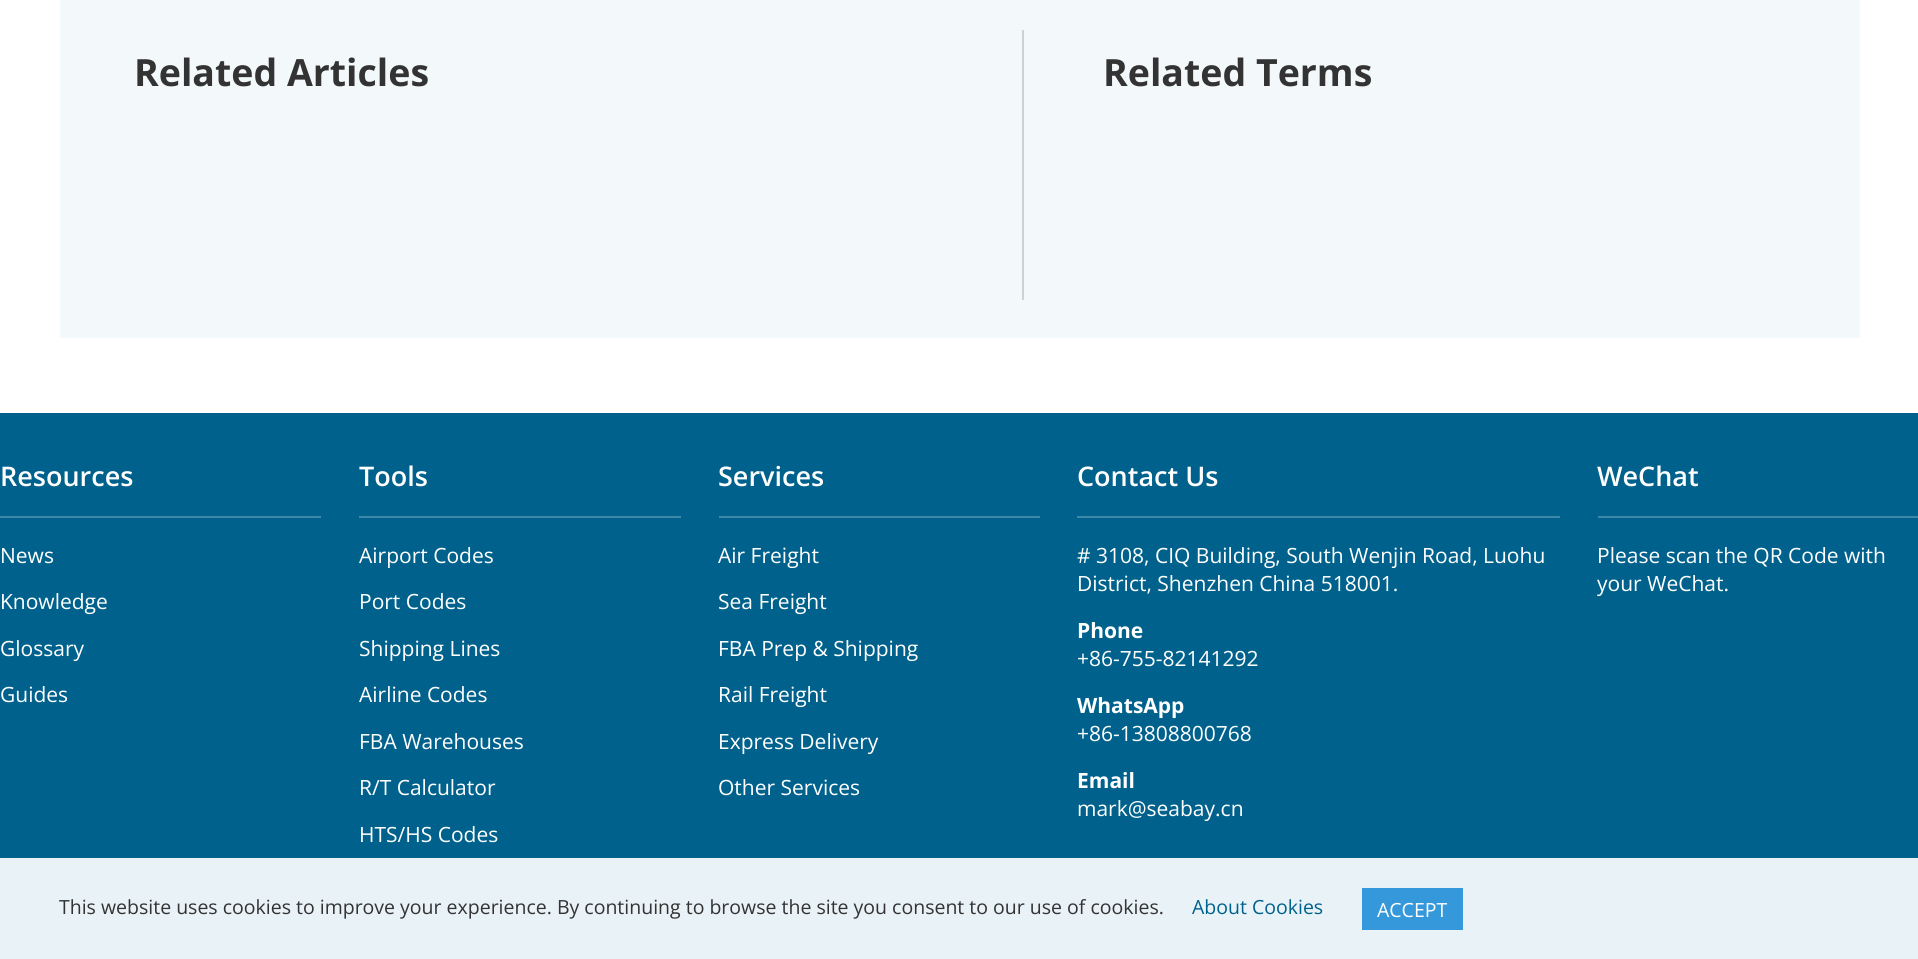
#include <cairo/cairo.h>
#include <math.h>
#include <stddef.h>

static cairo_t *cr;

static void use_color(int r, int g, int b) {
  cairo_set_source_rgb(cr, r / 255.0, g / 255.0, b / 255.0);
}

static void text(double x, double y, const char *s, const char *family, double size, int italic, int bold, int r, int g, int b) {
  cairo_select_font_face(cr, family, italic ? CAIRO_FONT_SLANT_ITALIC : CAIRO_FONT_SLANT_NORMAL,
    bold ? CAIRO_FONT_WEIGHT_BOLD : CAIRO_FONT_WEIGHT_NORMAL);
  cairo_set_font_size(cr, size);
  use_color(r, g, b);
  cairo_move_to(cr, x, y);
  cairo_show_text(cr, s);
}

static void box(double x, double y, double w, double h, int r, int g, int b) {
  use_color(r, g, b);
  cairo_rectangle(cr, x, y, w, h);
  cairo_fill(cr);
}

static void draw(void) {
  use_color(255, 255, 255);
  cairo_paint(cr);
  box(60, 0, 1800, 338, 243, 248, 250);
  box(1022, 30, 2, 270, 207, 209, 210);
  box(0, 413, 1918, 445, 0, 98, 140);
  box(0, 516, 321, 2, 61, 136, 168);
  box(359, 516, 322, 2, 61, 136, 168);
  box(719, 516, 321, 2, 61, 136, 168);
  box(1077, 516, 483, 2, 61, 136, 168);
  box(1598, 516, 320, 2, 61, 136, 168);
  box(0, 858, 1918, 101, 233, 242, 247);
  box(1362, 888, 101, 42, 52, 152, 219);
  text(134, 86, "Related Articles", "Open Sans", 37.5, 0, 1, 51, 51, 51);
  text(1103, 86, "Related Terms", "Open Sans", 37.5, 0, 1, 51, 51, 51);
  text(0, 486, "Resources", "Open Sans SemiBold", 27, 0, 0, 255, 255, 255);
  text(0, 563, "News", "Open Sans", 21, 0, 0, 255, 255, 255);
  text(0, 609, "Knowledge", "Open Sans", 21, 0, 0, 255, 255, 255);
  text(0, 656, "Glossary", "Open Sans", 21, 0, 0, 255, 255, 255);
  text(0, 702, "Guides", "Open Sans", 21, 0, 0, 255, 255, 255);
  text(359, 486, "Tools", "Open Sans SemiBold", 27, 0, 0, 255, 255, 255);
  text(359, 563, "Airport Codes", "Open Sans", 21, 0, 0, 255, 255, 255);
  text(359, 609, "Port Codes", "Open Sans", 21, 0, 0, 255, 255, 255);
  text(359, 656, "Shipping Lines", "Open Sans", 21, 0, 0, 255, 255, 255);
  text(359, 702, "Airline Codes", "Open Sans", 21, 0, 0, 255, 255, 255);
  text(359, 749, "FBA Warehouses", "Open Sans", 21, 0, 0, 255, 255, 255);
  text(359, 795, "R/T Calculator", "Open Sans", 21, 0, 0, 255, 255, 255);
  text(359, 842, "HTS/HS Codes", "Open Sans", 21, 0, 0, 255, 255, 255);
  text(718, 486, "Services", "Open Sans SemiBold", 27, 0, 0, 255, 255, 255);
  text(718, 563, "Air Freight", "Open Sans", 21, 0, 0, 255, 255, 255);
  text(718, 609, "Sea Freight", "Open Sans", 21, 0, 0, 255, 255, 255);
  text(718, 656, "FBA Prep & Shipping", "Open Sans", 21, 0, 0, 255, 255, 255);
  text(718, 702, "Rail Freight", "Open Sans", 21, 0, 0, 255, 255, 255);
  text(718, 749, "Express Delivery", "Open Sans", 21, 0, 0, 255, 255, 255);
  text(718, 795, "Other Services", "Open Sans", 21, 0, 0, 255, 255, 255);
  text(1077, 486, "Contact Us", "Open Sans SemiBold", 27, 0, 0, 255, 255, 255);
  text(1077, 563, "# 3108, CIQ Building, South Wenjin Road, Luohu", "Open Sans", 21, 0, 0, 255, 255, 255);
  text(1077, 591, "District, Shenzhen China 518001.", "Open Sans", 21, 0, 0, 255, 255, 255);
  text(1077, 638, "Phone", "Open Sans", 21, 0, 1, 255, 255, 255);
  text(1077, 666, "+86-755-82141292", "Open Sans", 21, 0, 0, 255, 255, 255);
  text(1077, 713, "WhatsApp", "Open Sans", 21, 0, 1, 255, 255, 255);
  text(1077, 741, "+86-13808800768", "Open Sans", 21, 0, 0, 255, 255, 255);
  text(1077, 788, "Email", "Open Sans", 21, 0, 1, 255, 255, 255);
  text(1077, 816, "mark@seabay.cn", "Open Sans", 21, 0, 0, 255, 255, 255);
  text(1597, 486, "WeChat", "Open Sans SemiBold", 27, 0, 0, 255, 255, 255);
  text(1597, 563, "Please scan the QR Code with", "Open Sans", 21, 0, 0, 255, 255, 255);
  text(1597, 591, "your WeChat.", "Open Sans", 21, 0, 0, 255, 255, 255);
  text(59, 914, "This website uses cookies to improve your experience. By continuing to browse the site you consent to our use of cookies.", "Open Sans", 19.5, 0, 0, 51, 51, 51);
  text(1192, 914, "About Cookies", "Open Sans", 19.5, 0, 0, 0, 98, 140);
  text(1377, 917, "ACCEPT", "Open Sans", 19.5, 0, 0, 255, 255, 255);
}

int main(void) {
  cairo_surface_t *surface = cairo_image_surface_create(CAIRO_FORMAT_RGB24, 1918, 959);
  cr = cairo_create(surface);
  cairo_font_options_t *options = cairo_font_options_create();
  cairo_font_options_set_hint_metrics(options, CAIRO_HINT_METRICS_OFF);
  cairo_font_options_set_hint_style(options, CAIRO_HINT_STYLE_NONE);
  cairo_set_font_options(cr, options);
  cairo_set_miter_limit(cr, 4);
  draw();
  cairo_surface_write_to_png(surface, "out.png");
  cairo_font_options_destroy(options);
  cairo_destroy(cr);
  cairo_surface_destroy(surface);
  return 0;
}
